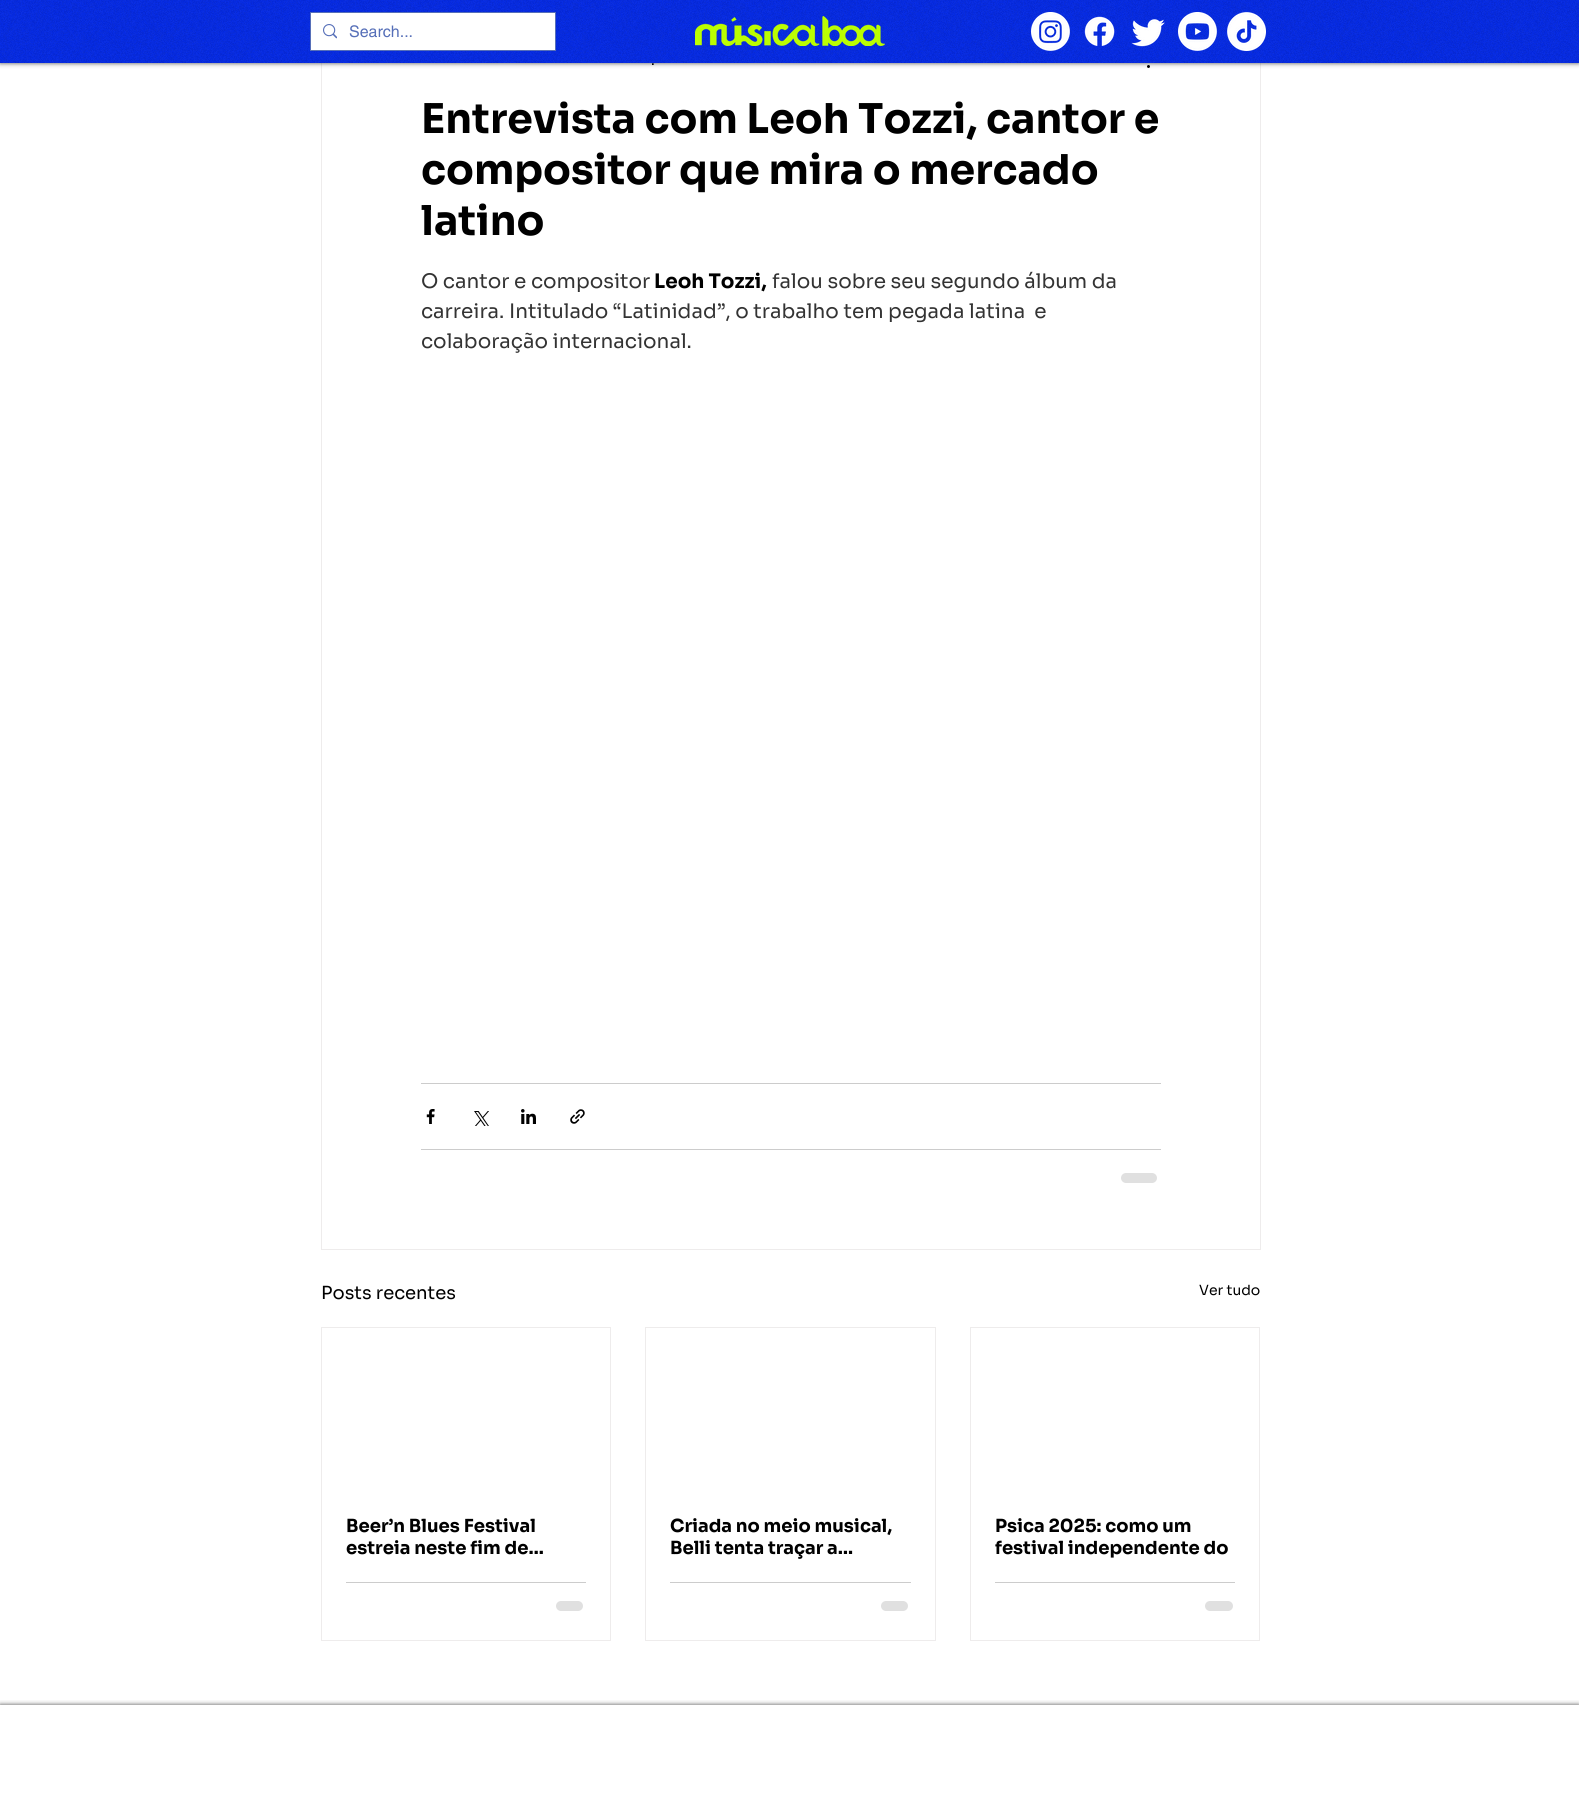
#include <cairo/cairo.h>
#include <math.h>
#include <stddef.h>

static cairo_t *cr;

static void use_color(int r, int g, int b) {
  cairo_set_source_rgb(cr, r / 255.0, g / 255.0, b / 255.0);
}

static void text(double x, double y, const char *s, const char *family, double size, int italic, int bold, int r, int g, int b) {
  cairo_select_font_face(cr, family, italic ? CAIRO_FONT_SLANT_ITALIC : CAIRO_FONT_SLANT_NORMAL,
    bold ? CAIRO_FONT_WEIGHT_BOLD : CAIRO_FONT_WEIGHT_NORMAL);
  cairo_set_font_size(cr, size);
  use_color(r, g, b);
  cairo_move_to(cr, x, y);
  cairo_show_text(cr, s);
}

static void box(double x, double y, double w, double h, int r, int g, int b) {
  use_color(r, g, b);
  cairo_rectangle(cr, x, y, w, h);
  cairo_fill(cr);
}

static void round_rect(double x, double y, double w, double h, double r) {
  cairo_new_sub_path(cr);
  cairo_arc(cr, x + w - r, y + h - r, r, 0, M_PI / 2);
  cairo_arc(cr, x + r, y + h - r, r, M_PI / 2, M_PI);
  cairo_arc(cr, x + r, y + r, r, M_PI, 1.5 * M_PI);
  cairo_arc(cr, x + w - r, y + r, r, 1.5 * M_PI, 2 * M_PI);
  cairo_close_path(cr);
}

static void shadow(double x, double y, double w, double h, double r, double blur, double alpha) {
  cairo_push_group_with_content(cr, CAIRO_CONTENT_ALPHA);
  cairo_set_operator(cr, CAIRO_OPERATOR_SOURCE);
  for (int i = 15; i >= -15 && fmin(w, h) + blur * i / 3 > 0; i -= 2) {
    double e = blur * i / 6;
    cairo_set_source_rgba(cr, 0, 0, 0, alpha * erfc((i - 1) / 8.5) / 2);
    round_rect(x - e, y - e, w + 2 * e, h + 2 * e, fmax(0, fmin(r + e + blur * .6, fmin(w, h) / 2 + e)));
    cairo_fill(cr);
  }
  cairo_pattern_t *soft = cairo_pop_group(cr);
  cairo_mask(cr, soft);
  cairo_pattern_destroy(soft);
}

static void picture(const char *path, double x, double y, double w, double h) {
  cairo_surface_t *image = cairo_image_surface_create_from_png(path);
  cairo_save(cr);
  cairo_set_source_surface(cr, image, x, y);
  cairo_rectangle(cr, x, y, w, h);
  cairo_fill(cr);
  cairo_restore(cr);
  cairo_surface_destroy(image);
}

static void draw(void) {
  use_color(255, 255, 255);
  cairo_paint(cr);
  cairo_rectangle(cr, 321.5, -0.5, 939, 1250);
  use_color(238, 236, 236);
  cairo_set_line_width(cr, 1);
  cairo_stroke(cr);
  picture("img_09.png", 1147, 65, 3, 3);
  use_color(0, 0, 0);
  shadow(0, 0, 1579, 63, 0, 2.5, 0.7);
  box(0, 0, 1579, 63, 5, 42, 227);
  picture("img_01.png", 0, 0, 1579, 63);
  cairo_rectangle(cr, 310.5, 12.5, 245, 38);
  use_color(86, 111, 184);
  cairo_stroke(cr);
  box(311, 13, 244, 37, 255, 255, 255);
  picture("img_02.png", 323, 24, 14, 15);
  picture("img_03.png", 695, 16, 190, 30);
  picture("img_04.png", 1031, 12, 39, 39);
  picture("img_05.png", 1084, 16, 31, 30);
  picture("img_06.png", 1131, 19, 34, 28);
  picture("img_07.png", 1178, 12, 39, 39);
  picture("img_08.png", 1227, 12, 39, 39);
  box(421, 1083, 740, 1, 204, 204, 204);
  picture("img_10.png", 426, 1109, 9, 15);
  picture("img_11.png", 474, 1111, 15, 15);
  picture("img_12.png", 521, 1109, 15, 15);
  picture("img_13.png", 570, 1109, 15, 15);
  box(421, 1149, 740, 1, 204, 204, 204);
  use_color(224, 224, 224);
  round_rect(1121, 1173, 36, 10, 5);
  cairo_fill(cr);
  cairo_rectangle(cr, 321.5, 1327.5, 289, 313);
  use_color(238, 236, 236);
  cairo_stroke(cr);
  box(346, 1582, 240, 1, 204, 204, 204);
  use_color(224, 224, 224);
  round_rect(556, 1601, 27, 10, 5);
  cairo_fill(cr);
  cairo_rectangle(cr, 645.5, 1327.5, 290, 313);
  use_color(238, 236, 236);
  cairo_stroke(cr);
  box(670, 1582, 241, 1, 204, 204, 204);
  use_color(224, 224, 224);
  round_rect(881, 1601, 27, 10, 5);
  cairo_fill(cr);
  cairo_rectangle(cr, 970.5, 1327.5, 289, 313);
  use_color(238, 236, 236);
  cairo_stroke(cr);
  box(995, 1582, 240, 1, 204, 204, 204);
  use_color(224, 224, 224);
  round_rect(1205, 1601, 28, 10, 5);
  cairo_fill(cr);
  cairo_save(cr);
  cairo_rectangle(cr, 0, 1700, 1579, 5);
  cairo_clip(cr);
  use_color(0, 0, 0);
  shadow(0, 1705, 1579, 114, 0, 2.5, 0.7);
  cairo_restore(cr);
  text(349, 37, "Search...", "helvetica", 16, 0, 0, 86, 111, 184);
  text(651, 65, ".", "Sora", 14, 0, 0, 0, 0, 0);
  text(421, 133, "Entrevista com Leoh Tozzi, cantor e", "Sora", 41, 0, 1, 0, 0, 0);
  text(421, 184, "compositor que mira o mercado", "Sora", 41, 0, 1, 0, 0, 0);
  text(421, 235, "latino", "Sora", 41, 0, 1, 0, 0, 0);
  text(421, 288, "O cantor e compositor", "Sora", 20, 0, 0, 51, 51, 51);
  text(654, 288, "Leoh Tozzi,", "Sora", 20, 0, 1, 0, 0, 0);
  text(772, 288, "falou sobre seu segundo álbum da", "Sora", 20, 0, 0, 51, 51, 51);
  text(421, 318, "carreira. Intitulado “Latinidad”, o trabalho tem pegada latina  e", "Sora", 20, 0, 0, 51, 51, 51);
  text(421, 348, "colaboração internacional.", "Sora", 20, 0, 0, 51, 51, 51);
  text(321, 1299, "Posts recentes", "Sora", 18, 0, 0, 0, 0, 0);
  text(1199, 1295, "Ver tudo", "Sora", 14, 0, 0, 0, 0, 0);
  text(346, 1532, "Beer’n Blues Festival", "Sora", 18, 0, 1, 0, 0, 0);
  text(346, 1554, "estreia neste fim de…", "Sora", 18, 0, 1, 0, 0, 0);
  text(670, 1532, "Criada no meio musical,", "Sora", 18, 0, 1, 0, 0, 0);
  text(670, 1554, "Belli tenta traçar a…", "Sora", 18, 0, 1, 0, 0, 0);
  text(995, 1532, "Psica 2025: como um", "Sora", 18, 0, 1, 0, 0, 0);
  text(995, 1554, "festival independente do", "Sora", 18, 0, 1, 0, 0, 0);
}

int main(void) {
  cairo_surface_t *surface = cairo_image_surface_create(CAIRO_FORMAT_RGB24, 1579, 1811);
  cr = cairo_create(surface);
  cairo_font_options_t *options = cairo_font_options_create();
  cairo_font_options_set_hint_metrics(options, CAIRO_HINT_METRICS_OFF);
  cairo_font_options_set_hint_style(options, CAIRO_HINT_STYLE_NONE);
  cairo_set_font_options(cr, options);
  cairo_set_miter_limit(cr, 4);
  draw();
  cairo_surface_write_to_png(surface, "out.png");
  cairo_font_options_destroy(options);
  cairo_destroy(cr);
  cairo_surface_destroy(surface);
  return 0;
}
